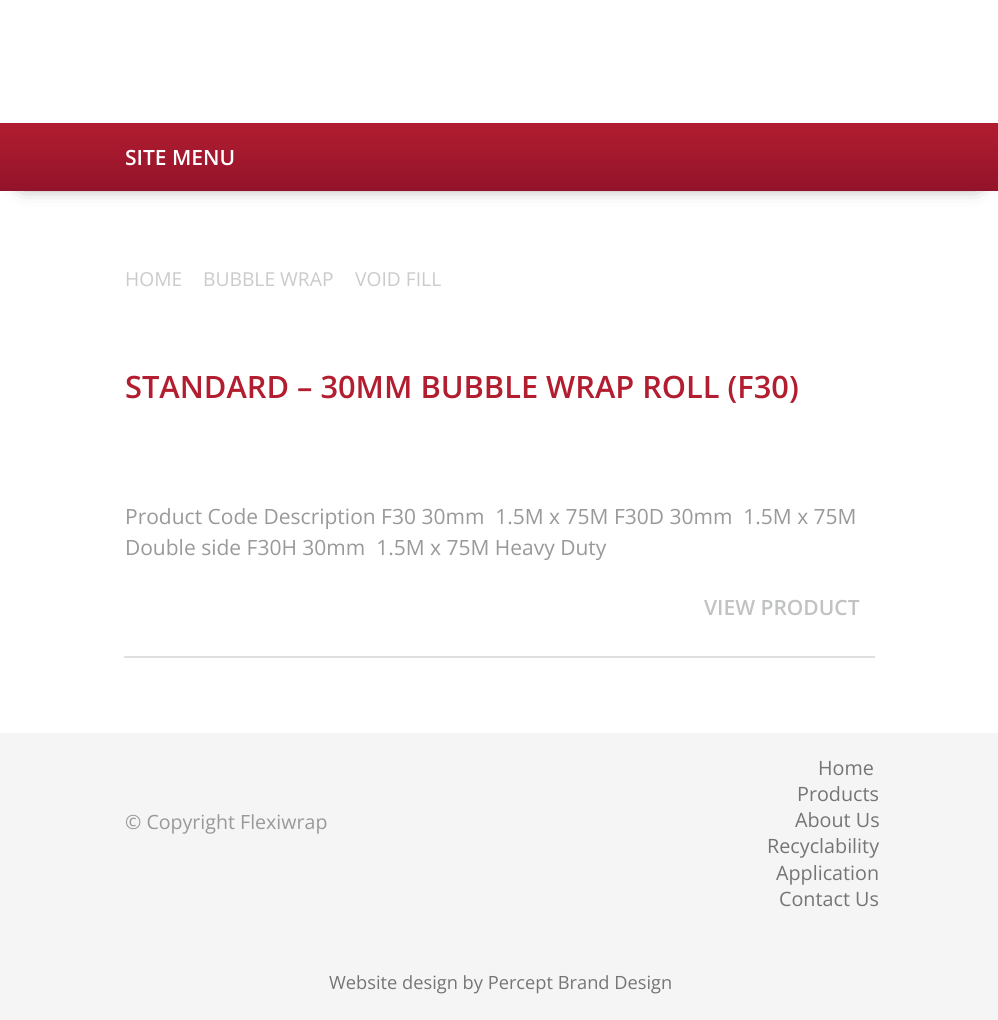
#include <cairo/cairo.h>
#include <math.h>
#include <stddef.h>

static cairo_t *cr;

static void use_color(int r, int g, int b) {
  cairo_set_source_rgb(cr, r / 255.0, g / 255.0, b / 255.0);
}

static void text(double x, double y, const char *s, const char *family, double size, int italic, int bold, int r, int g, int b) {
  cairo_select_font_face(cr, family, italic ? CAIRO_FONT_SLANT_ITALIC : CAIRO_FONT_SLANT_NORMAL,
    bold ? CAIRO_FONT_WEIGHT_BOLD : CAIRO_FONT_WEIGHT_NORMAL);
  cairo_set_font_size(cr, size);
  use_color(r, g, b);
  cairo_move_to(cr, x, y);
  cairo_show_text(cr, s);
}

static void box(double x, double y, double w, double h, int r, int g, int b) {
  use_color(r, g, b);
  cairo_rectangle(cr, x, y, w, h);
  cairo_fill(cr);
}

static void round_rect(double x, double y, double w, double h, double r) {
  cairo_new_sub_path(cr);
  cairo_arc(cr, x + w - r, y + h - r, r, 0, M_PI / 2);
  cairo_arc(cr, x + r, y + h - r, r, M_PI / 2, M_PI);
  cairo_arc(cr, x + r, y + r, r, M_PI, 1.5 * M_PI);
  cairo_arc(cr, x + w - r, y + r, r, 1.5 * M_PI, 2 * M_PI);
  cairo_close_path(cr);
}

static void shadow(double x, double y, double w, double h, double r, double blur, double alpha) {
  cairo_push_group_with_content(cr, CAIRO_CONTENT_ALPHA);
  cairo_set_operator(cr, CAIRO_OPERATOR_SOURCE);
  for (int i = 15; i >= -15 && fmin(w, h) + blur * i / 3 > 0; i -= 2) {
    double e = blur * i / 6;
    cairo_set_source_rgba(cr, 0, 0, 0, alpha * erfc((i - 1) / 8.5) / 2);
    round_rect(x - e, y - e, w + 2 * e, h + 2 * e, fmax(0, fmin(r + e + blur * .6, fmin(w, h) / 2 + e)));
    cairo_fill(cr);
  }
  cairo_pattern_t *soft = cairo_pop_group(cr);
  cairo_mask(cr, soft);
  cairo_pattern_destroy(soft);
}

static void draw(void) {
  cairo_pattern_t *gradient;
  use_color(245, 245, 245);
  cairo_paint(cr);
  box(0, 0, 998, 123, 255, 255, 255);
  box(0, 191, 998, 542, 255, 255, 255);
  use_color(0, 0, 0);
  shadow(23, 158, 954, 22, 0, 10.5, 1);
  gradient = cairo_pattern_create_linear(500, 122, 500, 191);
  cairo_pattern_add_color_stop_rgba(gradient, 0, 0.698, 0.114, 0.188, 1);
  cairo_pattern_add_color_stop_rgba(gradient, 1, 0.576, 0.075, 0.165, 1);
  cairo_set_source(cr, gradient);
  cairo_pattern_destroy(gradient);
  cairo_rectangle(cr, 0, 123, 998, 68);
  cairo_fill(cr);
  box(124, 656, 751, 2, 223, 223, 223);
  text(125, 165, "SITE MENU", "Open Sans SemiBold", 21, 0, 0, 255, 255, 255);
  text(125, 286, "HOME", "Open Sans", 19.25, 0, 0, 202, 203, 203);
  text(203, 286, "BUBBLE WRAP", "Open Sans", 19.25, 0, 0, 202, 203, 203);
  text(355, 286, "VOID FILL", "Open Sans", 19.25, 0, 0, 202, 203, 203);
  text(125, 398, "STANDARD – 30MM BUBBLE WRAP ROLL (F30)", "Open Sans SemiBold", 30.8, 0, 0, 178, 29, 48);
  text(125, 524, "Product Code Description F30 30mm  1.5M x 75M F30D 30mm  1.5M x 75M", "Open Sans", 21, 0, 0, 153, 153, 153);
  text(125, 555, "Double side F30H 30mm  1.5M x 75M Heavy Duty", "Open Sans", 21, 0, 0, 153, 153, 153);
  text(704, 615, "VIEW PRODUCT", "Open Sans SemiBold", 21, 0, 0, 193, 194, 194);
  text(125, 829, "© Copyright Flexiwrap", "Open Sans", 19.6, 0, 0, 153, 153, 153);
  text(818, 775, "Home", "Open Sans", 19.75, 0, 0, 116, 117, 119);
  text(797, 801, "Products", "Open Sans", 19.75, 0, 0, 116, 117, 119);
  text(795, 827, "About Us", "Open Sans", 19.75, 0, 0, 116, 117, 119);
  text(767, 853, "Recyclability", "Open Sans", 19.75, 0, 0, 116, 117, 119);
  text(776, 880, "Application", "Open Sans", 19.75, 0, 0, 116, 117, 119);
  text(779, 906, "Contact Us", "Open Sans", 19.75, 0, 0, 116, 117, 119);
  text(329, 989, "Website design by Percept Brand Design", "Open Sans", 18.25, 0, 0, 116, 117, 119);
}

int main(void) {
  cairo_surface_t *surface = cairo_image_surface_create(CAIRO_FORMAT_RGB24, 998, 1020);
  cr = cairo_create(surface);
  cairo_font_options_t *options = cairo_font_options_create();
  cairo_font_options_set_hint_metrics(options, CAIRO_HINT_METRICS_OFF);
  cairo_font_options_set_hint_style(options, CAIRO_HINT_STYLE_NONE);
  cairo_set_font_options(cr, options);
  cairo_set_miter_limit(cr, 4);
  draw();
  cairo_surface_write_to_png(surface, "out.png");
  cairo_font_options_destroy(options);
  cairo_destroy(cr);
  cairo_surface_destroy(surface);
  return 0;
}
